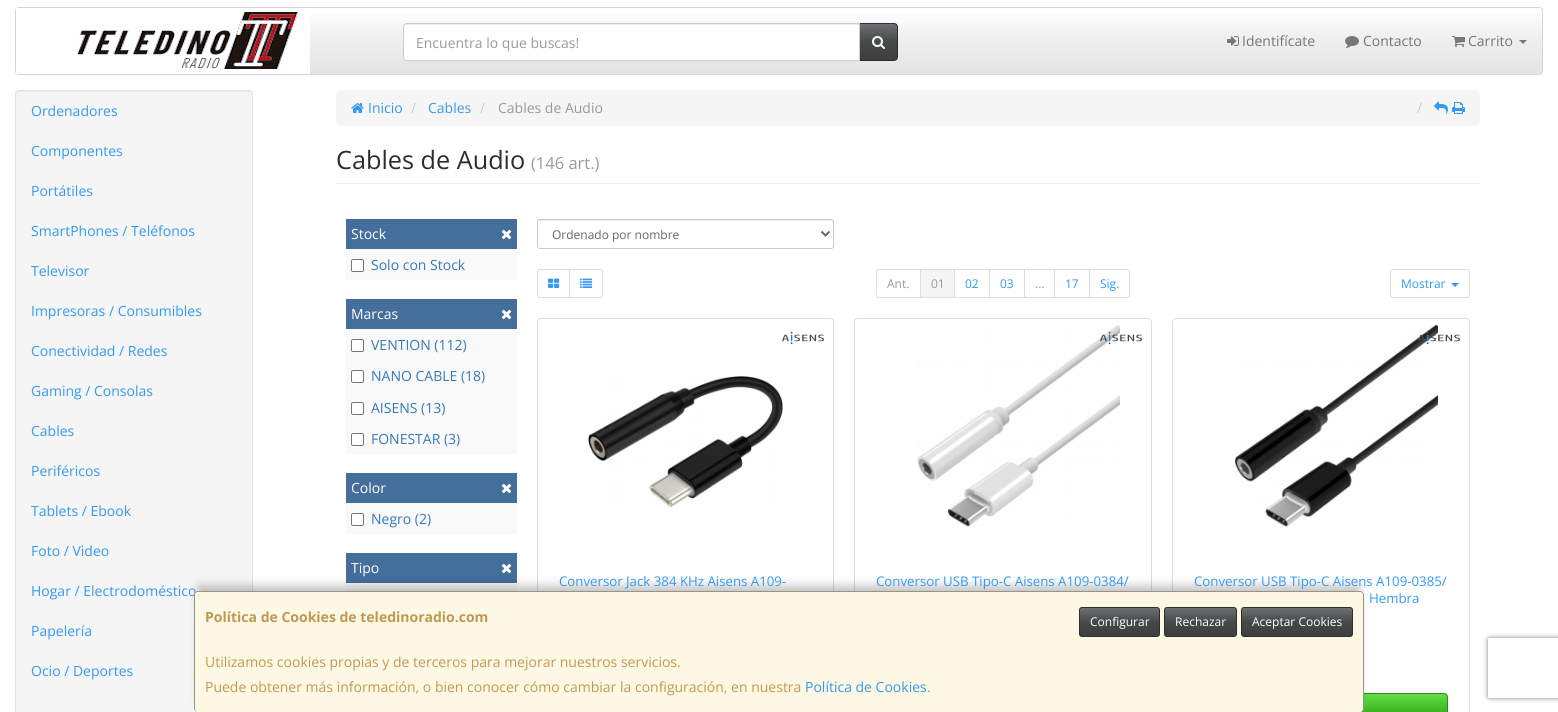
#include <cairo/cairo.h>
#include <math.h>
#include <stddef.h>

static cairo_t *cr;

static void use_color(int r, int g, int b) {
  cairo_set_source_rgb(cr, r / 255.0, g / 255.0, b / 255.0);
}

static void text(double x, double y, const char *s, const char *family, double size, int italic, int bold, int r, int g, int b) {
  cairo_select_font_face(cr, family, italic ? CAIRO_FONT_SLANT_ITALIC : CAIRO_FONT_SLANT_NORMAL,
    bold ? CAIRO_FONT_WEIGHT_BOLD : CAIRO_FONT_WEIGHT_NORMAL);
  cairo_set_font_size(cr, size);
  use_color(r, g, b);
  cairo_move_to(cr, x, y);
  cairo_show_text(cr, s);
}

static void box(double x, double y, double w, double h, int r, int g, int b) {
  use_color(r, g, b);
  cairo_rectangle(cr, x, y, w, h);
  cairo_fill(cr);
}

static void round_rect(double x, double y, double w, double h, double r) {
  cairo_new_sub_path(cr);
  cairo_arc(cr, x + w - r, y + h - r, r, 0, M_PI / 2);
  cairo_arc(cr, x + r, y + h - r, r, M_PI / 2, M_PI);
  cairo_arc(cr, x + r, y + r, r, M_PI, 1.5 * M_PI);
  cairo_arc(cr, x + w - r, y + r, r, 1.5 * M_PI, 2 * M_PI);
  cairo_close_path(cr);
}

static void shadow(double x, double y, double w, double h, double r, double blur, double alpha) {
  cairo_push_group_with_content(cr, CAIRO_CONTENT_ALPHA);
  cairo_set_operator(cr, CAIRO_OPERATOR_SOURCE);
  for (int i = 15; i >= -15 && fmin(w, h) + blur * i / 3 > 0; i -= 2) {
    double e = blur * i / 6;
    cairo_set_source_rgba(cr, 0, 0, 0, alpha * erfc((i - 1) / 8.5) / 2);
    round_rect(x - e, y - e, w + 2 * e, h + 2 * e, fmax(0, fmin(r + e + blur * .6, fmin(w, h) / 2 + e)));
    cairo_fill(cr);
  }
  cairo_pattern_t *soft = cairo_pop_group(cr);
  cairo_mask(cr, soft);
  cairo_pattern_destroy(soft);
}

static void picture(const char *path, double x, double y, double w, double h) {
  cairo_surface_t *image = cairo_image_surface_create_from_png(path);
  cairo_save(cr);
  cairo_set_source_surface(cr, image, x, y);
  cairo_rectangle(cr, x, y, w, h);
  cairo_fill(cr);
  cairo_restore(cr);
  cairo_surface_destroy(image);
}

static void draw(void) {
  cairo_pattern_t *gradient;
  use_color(255, 255, 255);
  cairo_paint(cr);
  gradient = cairo_pattern_create_linear(779, 8, 779, 74);
  cairo_pattern_add_color_stop_rgba(gradient, 0, 1, 1, 1, 1);
  cairo_pattern_add_color_stop_rgba(gradient, 0.5, 0.933, 0.933, 0.933, 1);
  cairo_pattern_add_color_stop_rgba(gradient, 1, 0.894, 0.894, 0.894, 1);
  cairo_set_source(cr, gradient);
  cairo_pattern_destroy(gradient);
  cairo_rectangle(cr, 310, 13, 1232, 61);
  cairo_fill(cr);
  round_rect(15.5, 7.5, 1527, 67, 3.5);
  use_color(213, 213, 213);
  cairo_set_line_width(cr, 1);
  cairo_stroke(cr);
  picture("img_01.png", 16, 8, 294, 66);
  gradient = cairo_pattern_create_linear(879, 24, 879, 60);
  cairo_pattern_add_color_stop_rgba(gradient, 0, 0.427, 0.439, 0.439, 1);
  cairo_pattern_add_color_stop_rgba(gradient, 0.5, 0.278, 0.286, 0.286, 1);
  cairo_pattern_add_color_stop_rgba(gradient, 1, 0.239, 0.247, 0.247, 1);
  cairo_set_source(cr, gradient);
  cairo_pattern_destroy(gradient);
  cairo_rectangle(cr, 860, 24, 37, 36);
  cairo_fill(cr);
  cairo_new_path(cr);
  cairo_move_to(cr, 859.5, 23.5);
  cairo_line_to(cr, 894, 23.5);
  cairo_curve_to(cr, 896, 23.5, 897.5, 25, 897.5, 27);
  cairo_line_to(cr, 897.5, 57);
  cairo_curve_to(cr, 897.5, 59, 896, 60.5, 894, 60.5);
  cairo_line_to(cr, 859.5, 60.5);
  cairo_close_path(cr);
  use_color(46, 47, 47);
  cairo_stroke(cr);
  use_color(255, 255, 255);
  cairo_new_path(cr);
  cairo_move_to(cr, 407, 23);
  cairo_line_to(cr, 860, 23);
  cairo_line_to(cr, 860, 61);
  cairo_line_to(cr, 407, 61);
  cairo_curve_to(cr, 405, 61, 403, 59, 403, 57);
  cairo_line_to(cr, 403, 27);
  cairo_curve_to(cr, 403, 25, 405, 23, 407, 23);
  cairo_close_path(cr);
  cairo_fill(cr);
  use_color(236, 236, 236);
  cairo_new_path(cr);
  cairo_move_to(cr, 407, 25);
  cairo_line_to(cr, 859, 25);
  cairo_line_to(cr, 859, 24);
  cairo_line_to(cr, 407, 24);
  cairo_curve_to(cr, 405, 24, 404, 26, 404, 28);
  cairo_curve_to(cr, 404, 26, 405, 25, 407, 25);
  cairo_close_path(cr);
  cairo_fill(cr);
  cairo_new_path(cr);
  cairo_move_to(cr, 407, 23.5);
  cairo_line_to(cr, 859.5, 23.5);
  cairo_line_to(cr, 859.5, 60.5);
  cairo_line_to(cr, 407, 60.5);
  cairo_curve_to(cr, 405, 60.5, 403.5, 59, 403.5, 57);
  cairo_line_to(cr, 403.5, 27);
  cairo_curve_to(cr, 403.5, 25, 405, 23.5, 407, 23.5);
  cairo_close_path(cr);
  use_color(204, 204, 204);
  cairo_stroke(cr);
  picture("img_02.png", 872, 36, 13, 13);
  picture("img_03.png", 1227, 36, 12, 10);
  picture("img_04.png", 1345, 36, 14, 12);
  picture("img_05.png", 1452, 36, 13, 11);
  use_color(119, 119, 119);
  cairo_new_path(cr);
  cairo_move_to(cr, 1519, 40);
  cairo_line_to(cr, 1527, 40);
  cairo_line_to(cr, 1523, 44);
  cairo_close_path(cr);
  cairo_fill(cr);
  use_color(245, 245, 245);
  round_rect(15, 90, 238, 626, 4);
  cairo_fill(cr);
  use_color(233, 233, 233);
  cairo_new_path(cr);
  cairo_move_to(cr, 19, 92);
  cairo_line_to(cr, 250, 92);
  cairo_line_to(cr, 252, 93);
  cairo_line_to(cr, 252, 95);
  cairo_curve_to(cr, 252, 93, 251, 91, 249, 91);
  cairo_line_to(cr, 19, 91);
  cairo_curve_to(cr, 17, 91, 16, 93, 16, 95);
  cairo_curve_to(cr, 16, 93, 17, 92, 19, 92);
  cairo_close_path(cr);
  cairo_fill(cr);
  round_rect(15.5, 90.5, 237, 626, 3.5);
  use_color(227, 227, 227);
  cairo_stroke(cr);
  use_color(245, 245, 245);
  round_rect(336, 90, 1144, 36, 4);
  cairo_fill(cr);
  picture("img_06.png", 351, 103, 13, 10);
  picture("img_07.png", 1434, 101, 14, 13);
  picture("img_08.png", 1452, 102, 13, 12);
  box(336, 183, 1144, 1, 238, 238, 238);
  box(346, 219, 171, 30, 68, 110, 155);
  picture("img_09.png", 501, 229, 11, 11);
  box(346, 249, 171, 31, 249, 249, 249);
  use_color(255, 255, 255);
  round_rect(351.5, 259.5, 12, 12, 1.5);
  cairo_fill_preserve(cr);
  use_color(118, 118, 118);
  cairo_stroke(cr);
  box(346, 299, 171, 30, 68, 110, 155);
  picture("img_09.png", 501, 309, 11, 11);
  box(346, 329, 171, 125, 249, 249, 249);
  use_color(255, 255, 255);
  round_rect(351.5, 339.5, 12, 12, 1.5);
  cairo_fill_preserve(cr);
  use_color(118, 118, 118);
  cairo_stroke(cr);
  use_color(255, 255, 255);
  round_rect(351.5, 370.5, 12, 12, 1.5);
  cairo_fill_preserve(cr);
  use_color(118, 118, 118);
  cairo_stroke(cr);
  use_color(255, 255, 255);
  round_rect(351.5, 402.5, 12, 12, 1.5);
  cairo_fill_preserve(cr);
  use_color(118, 118, 118);
  cairo_stroke(cr);
  use_color(255, 255, 255);
  round_rect(351.5, 433.5, 12, 12, 1.5);
  cairo_fill_preserve(cr);
  use_color(118, 118, 118);
  cairo_stroke(cr);
  box(346, 473, 171, 30, 68, 110, 155);
  picture("img_09.png", 501, 483, 11, 11);
  box(346, 503, 171, 31, 249, 249, 249);
  use_color(255, 255, 255);
  round_rect(351.5, 513.5, 12, 12, 1.5);
  cairo_fill_preserve(cr);
  use_color(118, 118, 118);
  cairo_stroke(cr);
  box(346, 553, 171, 30, 68, 110, 155);
  picture("img_09.png", 501, 563, 11, 11);
  box(346, 583, 171, 8, 249, 249, 249);
  use_color(236, 236, 236);
  cairo_new_path(cr);
  cairo_move_to(cr, 540, 221);
  cairo_line_to(cr, 831, 221);
  cairo_curve_to(cr, 832, 221, 833, 222, 833, 223);
  cairo_curve_to(cr, 833, 222, 833, 220, 831, 220);
  cairo_line_to(cr, 539, 220);
  cairo_line_to(cr, 538, 223);
  cairo_curve_to(cr, 538, 222, 539, 221, 540, 221);
  cairo_close_path(cr);
  cairo_fill(cr);
  round_rect(537.5, 219.5, 296, 29, 2.5);
  use_color(204, 204, 204);
  cairo_stroke(cr);
  cairo_new_path(cr);
  cairo_move_to(cr, 821.5, 231.5);
  cairo_line_to(cr, 825.5, 235.5);
  cairo_line_to(cr, 829.5, 231.5);
  use_color(102, 102, 102);
  cairo_set_line_width(cr, 2);
  cairo_stroke(cr);
  cairo_new_path(cr);
  cairo_move_to(cr, 540, 269.5);
  cairo_line_to(cr, 569.5, 269.5);
  cairo_line_to(cr, 569.5, 297.5);
  cairo_line_to(cr, 540, 297.5);
  cairo_curve_to(cr, 538.5, 297.5, 537.5, 296.5, 537.5, 295);
  cairo_line_to(cr, 537.5, 272);
  cairo_curve_to(cr, 537.5, 270.5, 538.5, 269.5, 540, 269.5);
  cairo_close_path(cr);
  use_color(221, 221, 221);
  cairo_set_line_width(cr, 1);
  cairo_stroke(cr);
  picture("img_10.png", 548, 278, 12, 10);
  use_color(255, 255, 255);
  cairo_new_path(cr);
  cairo_move_to(cr, 569.5, 269.5);
  cairo_line_to(cr, 600, 269.5);
  cairo_curve_to(cr, 601.5, 269.5, 602.5, 270.5, 602.5, 272);
  cairo_line_to(cr, 602.5, 295);
  cairo_curve_to(cr, 602.5, 296.5, 601.5, 297.5, 600, 297.5);
  cairo_line_to(cr, 569.5, 297.5);
  cairo_close_path(cr);
  cairo_fill_preserve(cr);
  use_color(221, 221, 221);
  cairo_stroke(cr);
  picture("img_11.png", 580, 278, 12, 10);
  cairo_new_path(cr);
  cairo_move_to(cr, 879, 269.5);
  cairo_line_to(cr, 920.5, 269.5);
  cairo_line_to(cr, 920.5, 297.5);
  cairo_line_to(cr, 879, 297.5);
  cairo_curve_to(cr, 877.5, 297.5, 876.5, 296.5, 876.5, 295);
  cairo_line_to(cr, 876.5, 272);
  cairo_curve_to(cr, 876.5, 270.5, 877.5, 269.5, 879, 269.5);
  cairo_close_path(cr);
  cairo_stroke(cr);
  cairo_rectangle(cr, 954.5, 269.5, 35, 28);
  cairo_stroke(cr);
  use_color(245, 245, 245);
  cairo_rectangle(cr, 920.5, 269.5, 34, 28);
  cairo_fill_preserve(cr);
  use_color(221, 221, 221);
  cairo_stroke(cr);
  cairo_rectangle(cr, 989.5, 269.5, 35, 28);
  cairo_stroke(cr);
  cairo_rectangle(cr, 1024.5, 269.5, 30, 28);
  cairo_stroke(cr);
  cairo_rectangle(cr, 1054.5, 269.5, 35, 28);
  cairo_stroke(cr);
  use_color(255, 255, 255);
  cairo_new_path(cr);
  cairo_move_to(cr, 1089.5, 269.5);
  cairo_line_to(cr, 1127, 269.5);
  cairo_curve_to(cr, 1128.5, 269.5, 1129.5, 270.5, 1129.5, 272);
  cairo_line_to(cr, 1129.5, 295);
  cairo_curve_to(cr, 1129.5, 296.5, 1128.5, 297.5, 1127, 297.5);
  cairo_line_to(cr, 1089.5, 297.5);
  cairo_close_path(cr);
  cairo_fill_preserve(cr);
  use_color(221, 221, 221);
  cairo_stroke(cr);
  round_rect(1390.5, 269.5, 79, 28, 2.5);
  cairo_stroke(cr);
  use_color(51, 153, 243);
  cairo_new_path(cr);
  cairo_move_to(cr, 1451, 283);
  cairo_line_to(cr, 1459, 283);
  cairo_line_to(cr, 1455, 287);
  cairo_close_path(cr);
  cairo_fill(cr);
  round_rect(537.5, 318.5, 296, 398, 3.5);
  use_color(221, 221, 221);
  cairo_stroke(cr);
  picture("img_12.png", 782, 331, 42, 14);
  picture("img_13.png", 588, 376, 195, 131);
  round_rect(854.5, 318.5, 297, 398, 3.5);
  cairo_stroke(cr);
  picture("img_14.png", 917, 325, 203, 202);
  picture("img_15.png", 1100, 331, 42, 14);
  round_rect(1172.5, 318.5, 297, 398, 3.5);
  cairo_stroke(cr);
  picture("img_16.png", 1234, 325, 204, 202);
  picture("img_17.png", 1418, 331, 42, 14);
  gradient = cairo_pattern_create_linear(1321, 694, 1321, 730);
  cairo_pattern_add_color_stop_rgba(gradient, 0, 0.38, 0.867, 0.271, 1);
  cairo_pattern_add_color_stop_rgba(gradient, 0.5, 0.235, 0.71, 0.129, 1);
  cairo_pattern_add_color_stop_rgba(gradient, 1, 0.212, 0.643, 0.118, 1);
  cairo_set_source(cr, gradient);
  cairo_pattern_destroy(gradient);
  cairo_rectangle(cr, 1360, 694, 87, 18);
  cairo_fill(cr);
  round_rect(1194.5, 693.5, 253, 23, 3.5);
  use_color(46, 138, 25);
  cairo_stroke(cr);
  use_color(0, 0, 0);
  shadow(199, 586, 1160, 111, 0, 5, 0.25);
  cairo_save(cr);
  cairo_set_fill_rule(cr, CAIRO_FILL_RULE_EVEN_ODD);
  cairo_new_path(cr);
  cairo_move_to(cr, 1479, 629);
  cairo_line_to(cr, 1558, 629);
  cairo_line_to(cr, 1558, 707);
  cairo_line_to(cr, 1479, 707);
  cairo_close_path(cr);
  cairo_move_to(cr, 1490, 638);
  cairo_line_to(cr, 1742, 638);
  cairo_curve_to(cr, 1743, 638, 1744, 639, 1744, 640);
  cairo_line_to(cr, 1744, 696);
  cairo_curve_to(cr, 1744, 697, 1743, 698, 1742, 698);
  cairo_line_to(cr, 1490, 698);
  cairo_curve_to(cr, 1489, 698, 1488, 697, 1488, 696);
  cairo_line_to(cr, 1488, 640);
  cairo_curve_to(cr, 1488, 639, 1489, 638, 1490, 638);
  cairo_close_path(cr);
  cairo_clip(cr);
  use_color(128, 128, 128);
  shadow(1488, 638, 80, 60, 2, 2.5, 1);
  cairo_restore(cr);
  text(416, 48, "Encuentra lo que buscas!", "Open Sans", 14, 0, 0, 153, 153, 153);
  text(1242, 46, "Identifícate", "Open Sans", 14, 0, 0, 119, 119, 119);
  text(1363, 46, "Contacto", "Open Sans", 14, 0, 0, 119, 119, 119);
  text(1468, 46, "Carrito", "Open Sans", 14, 0, 0, 119, 119, 119);
  text(31, 116, "Ordenadores", "Open Sans", 14, 0, 0, 51, 153, 243);
  text(31, 156, "Componentes", "Open Sans", 14, 0, 0, 51, 153, 243);
  text(31, 196, "Portátiles", "Open Sans", 14, 0, 0, 51, 153, 243);
  text(31, 236, "SmartPhones / Teléfonos", "Open Sans", 14, 0, 0, 51, 153, 243);
  text(31, 276, "Televisor", "Open Sans", 14, 0, 0, 51, 153, 243);
  text(31, 316, "Impresoras / Consumibles", "Open Sans", 14, 0, 0, 51, 153, 243);
  text(31, 356, "Conectividad / Redes", "Open Sans", 14, 0, 0, 51, 153, 243);
  text(31, 396, "Gaming / Consolas", "Open Sans", 14, 0, 0, 51, 153, 243);
  text(31, 436, "Cables", "Open Sans", 14, 0, 0, 51, 153, 243);
  text(31, 476, "Periféricos", "Open Sans", 14, 0, 0, 51, 153, 243);
  text(31, 516, "Tablets / Ebook", "Open Sans", 14, 0, 0, 51, 153, 243);
  text(31, 556, "Foto / Video", "Open Sans", 14, 0, 0, 51, 153, 243);
  text(31, 596, "Hogar / Electrodoméstico", "Open Sans", 14, 0, 0, 51, 153, 243);
  text(31, 636, "Papelería", "Open Sans", 14, 0, 0, 51, 153, 243);
  text(31, 676, "Ocio / Deportes", "Open Sans", 14, 0, 0, 51, 153, 243);
  text(368, 113, "Inicio", "Open Sans", 14, 0, 0, 51, 153, 243);
  text(411, 113, "/", "Open Sans", 14, 0, 0, 204, 204, 204);
  text(428, 113, "Cables", "Open Sans", 14, 0, 0, 51, 153, 243);
  text(480, 113, "/", "Open Sans", 14, 0, 0, 204, 204, 204);
  text(498, 113, "Cables de Audio", "Open Sans", 14, 0, 0, 153, 153, 153);
  text(1417, 113, "/", "Open Sans", 14, 0, 0, 204, 204, 204);
  text(336, 169, "Cables de Audio", "Open Sans", 25.25, 0, 0, 45, 45, 45);
  text(531, 169, "(146 art.)", "Open Sans", 16.5, 0, 0, 153, 153, 153);
  text(351, 239, "Stock", "Open Sans", 14, 0, 0, 255, 255, 255);
  text(371, 270, "Solo con Stock", "Open Sans", 14, 0, 0, 51, 122, 183);
  text(351, 319, "Marcas", "Open Sans", 14, 0, 0, 255, 255, 255);
  text(371, 350, "VENTION (112)", "Open Sans", 14, 0, 0, 51, 122, 183);
  text(371, 381, "NANO CABLE (18)", "Open Sans", 14, 0, 0, 51, 122, 183);
  text(371, 413, "AISENS (13)", "Open Sans", 14, 0, 0, 51, 122, 183);
  text(371, 444, "FONESTAR (3)", "Open Sans", 14, 0, 0, 51, 122, 183);
  text(351, 493, "Color", "Open Sans", 14, 0, 0, 255, 255, 255);
  text(371, 524, "Negro (2)", "Open Sans", 14, 0, 0, 51, 122, 183);
  text(351, 573, "Tipo", "Open Sans", 14, 0, 0, 255, 255, 255);
  text(552, 239, "Ordenado por nombre", "Open Sans", 12, 0, 0, 102, 102, 102);
  text(887, 288, "Ant.", "Open Sans", 12, 0, 0, 153, 153, 153);
  text(931, 288, "01", "Open Sans", 12, 0, 0, 153, 153, 153);
  text(965, 288, "02", "Open Sans", 12, 0, 0, 51, 153, 243);
  text(1000, 288, "03", "Open Sans", 12, 0, 0, 51, 153, 243);
  text(1035, 288, "...", "Open Sans", 12, 0, 0, 153, 153, 153);
  text(1065, 288, "17", "Open Sans", 12, 0, 0, 51, 153, 243);
  text(1100, 288, "Sig.", "Open Sans", 12, 0, 0, 51, 153, 243);
  text(1401, 288, "Mostrar", "Open Sans", 12, 0, 0, 51, 153, 243);
  text(559, 586, "Conversor Jack 384 KHz Aisens A109-", "Open Sans", 13.25, 0, 0, 51, 153, 243);
  text(876, 586, "Conversor USB Tipo-C Aisens A109-0384/", "Open Sans", 13.25, 0, 0, 51, 153, 243);
  text(1194, 586, "Conversor USB Tipo-C Aisens A109-0385/", "Open Sans", 13.25, 0, 0, 51, 153, 243);
  text(1369, 603, "Hembra", "Open Sans", 13.25, 0, 0, 51, 153, 243);
  use_color(252, 248, 227);
  round_rect(194, 591, 1170, 121, 4);
  cairo_fill(cr);
  cairo_set_source_rgba(cr, 0, 0, 0, 0.4);
  cairo_set_fill_rule(cr, CAIRO_FILL_RULE_EVEN_ODD);
  cairo_new_path(cr);
  cairo_move_to(cr, 198, 591);
  cairo_line_to(cr, 1360, 591);
  cairo_curve_to(cr, 1362, 591, 1364, 593, 1364, 595);
  cairo_line_to(cr, 1364, 708);
  cairo_curve_to(cr, 1364, 710, 1362, 712, 1360, 712);
  cairo_line_to(cr, 198, 712);
  cairo_curve_to(cr, 196, 712, 194, 710, 194, 708);
  cairo_line_to(cr, 194, 595);
  cairo_curve_to(cr, 194, 593, 196, 591, 198, 591);
  cairo_close_path(cr);
  cairo_move_to(cr, 198, 592);
  cairo_line_to(cr, 1360, 592);
  cairo_curve_to(cr, 1362, 592, 1363, 593, 1363, 595);
  cairo_line_to(cr, 1363, 708);
  cairo_curve_to(cr, 1363, 710, 1362, 712, 1360, 712);
  cairo_line_to(cr, 198, 712);
  cairo_curve_to(cr, 196, 712, 195, 710, 195, 708);
  cairo_line_to(cr, 195, 595);
  cairo_curve_to(cr, 195, 593, 196, 592, 198, 592);
  cairo_close_path(cr);
  cairo_fill(cr);
  text(205, 622, "Política de Cookies de teledinoradio.com", "Open Sans", 14, 0, 1, 192, 152, 83);
  gradient = cairo_pattern_create_linear(1120, 608, 1120, 636);
  cairo_pattern_add_color_stop_rgba(gradient, 0, 0.427, 0.439, 0.439, 1);
  cairo_pattern_add_color_stop_rgba(gradient, 0.5, 0.278, 0.286, 0.286, 1);
  cairo_pattern_add_color_stop_rgba(gradient, 1, 0.239, 0.247, 0.247, 1);
  cairo_set_source(cr, gradient);
  cairo_pattern_destroy(gradient);
  cairo_rectangle(cr, 1080, 608, 79, 28);
  cairo_fill(cr);
  round_rect(1079.5, 607.5, 80, 29, 2.5);
  use_color(46, 47, 47);
  cairo_stroke(cr);
  text(1090, 626, "Configurar", "Open Sans", 12, 0, 0, 255, 255, 255);
  gradient = cairo_pattern_create_linear(1201, 608, 1201, 636);
  cairo_pattern_add_color_stop_rgba(gradient, 0, 0.427, 0.439, 0.439, 1);
  cairo_pattern_add_color_stop_rgba(gradient, 0.5, 0.278, 0.286, 0.286, 1);
  cairo_pattern_add_color_stop_rgba(gradient, 1, 0.239, 0.247, 0.247, 1);
  cairo_set_source(cr, gradient);
  cairo_pattern_destroy(gradient);
  cairo_rectangle(cr, 1165, 608, 71, 28);
  cairo_fill(cr);
  round_rect(1164.5, 607.5, 72, 29, 2.5);
  use_color(46, 47, 47);
  cairo_stroke(cr);
  text(1175, 626, "Rechazar", "Open Sans", 12, 0, 0, 255, 255, 255);
  gradient = cairo_pattern_create_linear(1297, 608, 1297, 636);
  cairo_pattern_add_color_stop_rgba(gradient, 0, 0.427, 0.439, 0.439, 1);
  cairo_pattern_add_color_stop_rgba(gradient, 0.5, 0.278, 0.286, 0.286, 1);
  cairo_pattern_add_color_stop_rgba(gradient, 1, 0.239, 0.247, 0.247, 1);
  cairo_set_source(cr, gradient);
  cairo_pattern_destroy(gradient);
  cairo_rectangle(cr, 1242, 608, 110, 28);
  cairo_fill(cr);
  round_rect(1241.5, 607.5, 111, 29, 2.5);
  use_color(46, 47, 47);
  cairo_stroke(cr);
  text(1252, 626, "Aceptar Cookies", "Open Sans", 12, 0, 0, 255, 255, 255);
  text(205, 667, "Utilizamos cookies propias y de terceros para mejorar nuestros servicios.", "Open Sans", 14, 0, 0, 192, 152, 83);
  text(205, 692, "Puede obtener más información, o bien conocer cómo cambiar la configuración, en nuestra", "Open Sans", 14, 0, 0, 192, 152, 83);
  text(805, 692, "Política de Cookies", "Open Sans", 14, 0, 0, 51, 153, 243);
  text(927, 692, ".", "Open Sans", 14, 0, 0, 192, 152, 83);
}

int main(void) {
  cairo_surface_t *surface = cairo_image_surface_create(CAIRO_FORMAT_RGB24, 1558, 712);
  cr = cairo_create(surface);
  cairo_font_options_t *options = cairo_font_options_create();
  cairo_font_options_set_hint_metrics(options, CAIRO_HINT_METRICS_OFF);
  cairo_font_options_set_hint_style(options, CAIRO_HINT_STYLE_NONE);
  cairo_set_font_options(cr, options);
  cairo_set_miter_limit(cr, 4);
  draw();
  cairo_surface_write_to_png(surface, "out.png");
  cairo_font_options_destroy(options);
  cairo_destroy(cr);
  cairo_surface_destroy(surface);
  return 0;
}
